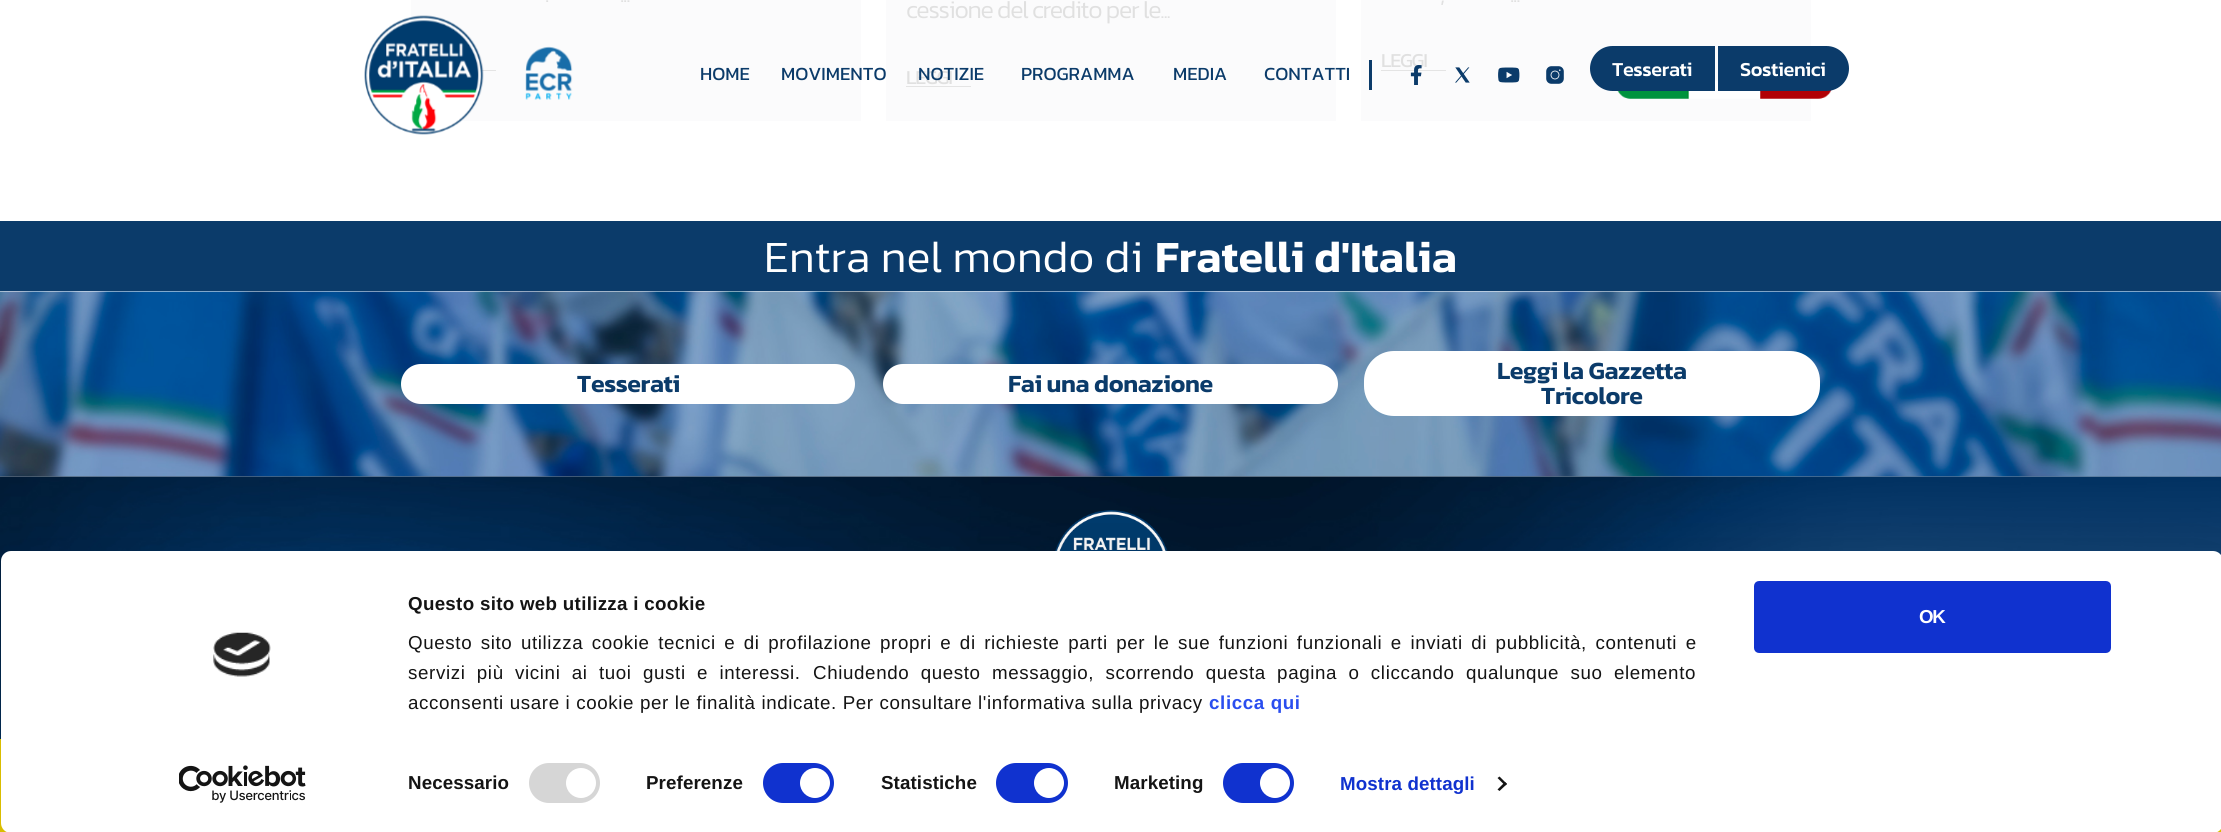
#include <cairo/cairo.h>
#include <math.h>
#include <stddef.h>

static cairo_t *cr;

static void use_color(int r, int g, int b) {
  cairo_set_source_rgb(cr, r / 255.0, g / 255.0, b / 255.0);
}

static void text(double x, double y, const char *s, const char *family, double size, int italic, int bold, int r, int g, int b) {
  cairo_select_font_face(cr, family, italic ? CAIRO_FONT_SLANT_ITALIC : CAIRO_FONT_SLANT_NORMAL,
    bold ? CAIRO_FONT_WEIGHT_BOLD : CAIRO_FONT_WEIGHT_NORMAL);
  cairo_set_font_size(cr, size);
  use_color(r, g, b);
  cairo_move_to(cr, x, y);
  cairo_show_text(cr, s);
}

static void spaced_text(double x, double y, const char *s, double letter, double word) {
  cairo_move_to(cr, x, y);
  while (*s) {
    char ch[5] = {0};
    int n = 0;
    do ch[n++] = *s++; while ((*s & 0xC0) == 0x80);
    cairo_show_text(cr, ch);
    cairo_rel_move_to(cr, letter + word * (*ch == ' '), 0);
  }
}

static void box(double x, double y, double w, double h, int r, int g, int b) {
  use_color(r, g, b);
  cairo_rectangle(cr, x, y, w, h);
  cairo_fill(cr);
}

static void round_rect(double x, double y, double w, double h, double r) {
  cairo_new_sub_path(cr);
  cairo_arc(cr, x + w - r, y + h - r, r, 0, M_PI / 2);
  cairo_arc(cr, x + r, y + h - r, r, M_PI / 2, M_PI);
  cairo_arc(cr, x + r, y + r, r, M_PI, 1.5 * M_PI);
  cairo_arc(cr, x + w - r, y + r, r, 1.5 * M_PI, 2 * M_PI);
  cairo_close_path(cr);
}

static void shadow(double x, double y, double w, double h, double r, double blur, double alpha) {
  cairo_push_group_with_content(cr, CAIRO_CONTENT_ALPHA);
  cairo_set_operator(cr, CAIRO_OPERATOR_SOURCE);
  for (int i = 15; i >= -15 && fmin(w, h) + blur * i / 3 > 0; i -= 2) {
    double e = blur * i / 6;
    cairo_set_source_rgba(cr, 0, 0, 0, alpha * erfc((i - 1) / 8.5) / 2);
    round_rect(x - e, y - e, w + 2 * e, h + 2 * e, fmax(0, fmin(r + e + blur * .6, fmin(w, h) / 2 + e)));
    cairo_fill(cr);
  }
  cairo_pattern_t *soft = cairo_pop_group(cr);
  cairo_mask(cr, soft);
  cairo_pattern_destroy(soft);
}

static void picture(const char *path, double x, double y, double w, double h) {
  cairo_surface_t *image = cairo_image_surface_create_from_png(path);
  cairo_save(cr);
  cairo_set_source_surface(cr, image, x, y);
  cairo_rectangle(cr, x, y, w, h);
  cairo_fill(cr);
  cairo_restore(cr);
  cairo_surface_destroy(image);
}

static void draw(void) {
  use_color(255, 255, 255);
  cairo_paint(cr);
  box(411, 0, 450, 121, 251, 251, 252);
  box(481, 70, 15, 1, 228, 228, 228);
  box(886, 0, 450, 121, 251, 251, 252);
  box(906, 86, 65, 1, 228, 228, 228);
  box(1361, 0, 450, 121, 251, 251, 252);
  box(1381, 70, 65, 1, 228, 228, 228);
  picture("img_01.png", 364, 15, 120, 120);
  picture("img_02.png", 525, 46, 48, 54);
  box(1369, 60, 3, 30, 11, 59, 106);
  picture("img_04.png", 1455, 67, 15, 16);
  picture("img_05.png", 1498, 67, 22, 16);
  picture("img_06.png", 1546, 66, 18, 18);
  picture("img_07.png", 1617, 81, 215, 18);
  cairo_new_path(cr);
  cairo_move_to(cr, 1612.5, 47.5);
  cairo_line_to(cr, 1713.5, 47.5);
  cairo_line_to(cr, 1713.5, 89.5);
  cairo_line_to(cr, 1612.5, 89.5);
  cairo_curve_to(cr, 1601, 89.5, 1591.5, 80, 1591.5, 68.5);
  cairo_curve_to(cr, 1591.5, 57, 1601, 47.5, 1612.5, 47.5);
  cairo_close_path(cr);
  cairo_fill_preserve(cr);
  cairo_set_line_width(cr, 3);
  cairo_stroke(cr);
  cairo_new_path(cr);
  cairo_move_to(cr, 1719.5, 47.5);
  cairo_line_to(cr, 1826.5, 47.5);
  cairo_curve_to(cr, 1838, 47.5, 1847.5, 57, 1847.5, 68.5);
  cairo_curve_to(cr, 1847.5, 80, 1838, 89.5, 1826.5, 89.5);
  cairo_line_to(cr, 1719.5, 89.5);
  cairo_close_path(cr);
  cairo_fill_preserve(cr);
  cairo_stroke(cr);
  box(0, 221, 2221, 70, 11, 59, 106);
  picture("img_08.png", 0, 291, 2221, 186);
  use_color(255, 255, 255);
  round_rect(401, 364, 454, 40, 20);
  cairo_fill(cr);
  round_rect(883, 364, 455, 40, 20);
  cairo_fill(cr);
  round_rect(1364, 351, 456, 65, 30);
  cairo_fill(cr);
  picture("img_09.png", 0, 476, 2221, 263);
  picture("img_10.png", 1055, 510, 113, 41);
  box(0, 739, 2221, 93, 255, 222, 0);
  use_color(0, 0, 0);
  shadow(1, 589, 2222, 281, 10, 44, 0.3);
  use_color(255, 255, 255);
  round_rect(1, 551, 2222, 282, 10);
  cairo_fill(cr);
  use_color(214, 214, 214);
  round_rect(529, 763, 71, 40, 20);
  cairo_fill(cr);
  use_color(255, 255, 255);
  cairo_arc(cr, 581, 783, 15, 0, 2 * M_PI);
  cairo_fill(cr);
  use_color(16, 50, 207);
  round_rect(763, 763, 71, 40, 20);
  cairo_fill(cr);
  use_color(255, 255, 255);
  cairo_arc(cr, 815, 783, 15, 0, 2 * M_PI);
  cairo_fill(cr);
  use_color(16, 50, 207);
  round_rect(996, 763, 72, 40, 20);
  cairo_fill(cr);
  use_color(255, 255, 255);
  cairo_arc(cr, 1049, 783, 15, 0, 2 * M_PI);
  cairo_fill(cr);
  use_color(16, 50, 207);
  round_rect(1223, 763, 71, 40, 20);
  cairo_fill(cr);
  use_color(255, 255, 255);
  cairo_arc(cr, 1275, 783, 15, 0, 2 * M_PI);
  cairo_fill(cr);
  use_color(20, 20, 20);
  cairo_new_path(cr);
  cairo_move_to(cr, 1499.5, 776.5);
  cairo_line_to(cr, 1507, 784);
  cairo_line_to(cr, 1505, 785.5);
  cairo_line_to(cr, 1497.5, 778);
  cairo_close_path(cr);
  cairo_fill(cr);
  cairo_new_path(cr);
  cairo_move_to(cr, 1505, 782);
  cairo_line_to(cr, 1507, 784);
  cairo_line_to(cr, 1499.5, 791);
  cairo_line_to(cr, 1497.5, 789.5);
  cairo_close_path(cr);
  cairo_fill(cr);
  use_color(16, 50, 207);
  round_rect(1755.5, 582.5, 354, 69, 3.5);
  cairo_fill_preserve(cr);
  cairo_stroke(cr);
  picture("img_11.png", 213, 632, 58, 45);
  picture("img_12.png", 179, 765, 127, 38);
  cairo_select_font_face(cr, "Kanit Light", CAIRO_FONT_SLANT_NORMAL, CAIRO_FONT_WEIGHT_NORMAL);
  cairo_set_font_size(cr, 25);
  use_color(224, 224, 224);
  spaced_text(545, 2, ".", -1.25, 0);
  spaced_text(620, 2, "...", -1.25, 0);
  spaced_text(906, 18, "cessione del credito per le...", -1.25, 0);
  cairo_select_font_face(cr, "Kanit", CAIRO_FONT_SLANT_NORMAL, CAIRO_FONT_WEIGHT_NORMAL);
  cairo_set_font_size(cr, 20);
  spaced_text(906, 84, "LEGGI", -1.25, 0);
  cairo_select_font_face(cr, "Kanit Light", CAIRO_FONT_SLANT_NORMAL, CAIRO_FONT_WEIGHT_NORMAL);
  cairo_set_font_size(cr, 25);
  spaced_text(1440, 2, ",", -1.25, 0);
  spaced_text(1510, 2, "...", -1.25, 0);
  cairo_select_font_face(cr, "Kanit", CAIRO_FONT_SLANT_NORMAL, CAIRO_FONT_WEIGHT_NORMAL);
  cairo_set_font_size(cr, 20);
  spaced_text(1381, 67, "LEGGI", -1.25, 0);
  text(700, 80, "HOME", "Kanit", 18.75, 0, 0, 11, 59, 106);
  text(781, 80, "MOVIMENTO", "Kanit", 18.75, 0, 0, 11, 59, 106);
  text(918, 80, "NOTIZIE", "Kanit", 18.75, 0, 0, 11, 59, 106);
  text(1021, 80, "PROGRAMMA", "Kanit", 18.75, 0, 0, 11, 59, 106);
  text(1173, 80, "MEDIA", "Kanit", 18.75, 0, 0, 11, 59, 106);
  text(1264, 80, "CONTATTI", "Kanit", 18.75, 0, 0, 11, 59, 106);
  picture("img_03.png", 1410, 65, 12, 20);
  cairo_select_font_face(cr, "Kanit Medium", CAIRO_FONT_SLANT_NORMAL, CAIRO_FONT_WEIGHT_NORMAL);
  cairo_set_font_size(cr, 20);
  use_color(255, 255, 255);
  spaced_text(1612, 76, "Tesserati", -0.4, 0);
  spaced_text(1740, 76, "Sostienici", -0.4, 0);
  text(764, 272, "Entra nel mondo di", "Kanit Light", 45, 0, 0, 255, 255, 255);
  text(1155, 272, "Fratelli d'Italia", "Kanit SemiBold", 45, 0, 0, 255, 255, 255);
  cairo_set_font_size(cr, 25);
  use_color(11, 59, 106);
  spaced_text(577, 392, "Tesserati", -0.4, 0);
  spaced_text(1008, 392, "Fai una donazione", -0.4, 0);
  spaced_text(1497, 379, "Leggi la Gazzetta", -0.4, 0);
  spaced_text(1541, 404, "Tricolore", -0.4, 0);
  cairo_select_font_face(cr, "Liberation Sans", CAIRO_FONT_SLANT_NORMAL, CAIRO_FONT_WEIGHT_BOLD);
  cairo_set_font_size(cr, 18.75);
  use_color(20, 20, 20);
  spaced_text(408, 610, "Questo sito web utilizza i cookie", 0.3, 0);
  cairo_select_font_face(cr, "Liberation Sans", CAIRO_FONT_SLANT_NORMAL, CAIRO_FONT_WEIGHT_NORMAL);
  spaced_text(408, 649, "Questo sito utilizza cookie tecnici e di profilazione propri e di richieste parti per le sue funzioni funzionali e inviati di pubblicità, contenuti e", 0.62, 2.7);
  spaced_text(408, 679, "servizi più vicini ai tuoi gusti e interessi.", 0.62, 5.5);
  spaced_text(813, 679, "Chiudendo questo messaggio, scorrendo questa pagina o cliccando qualunque suo elemento", 0.62, 5.5);
  spaced_text(408, 709, "acconsenti usare i cookie per le finalità indicate. Per consultare l'informativa sulla privacy", 0.62, 0);
  cairo_select_font_face(cr, "Liberation Sans", CAIRO_FONT_SLANT_NORMAL, CAIRO_FONT_WEIGHT_BOLD);
  use_color(42, 78, 239);
  spaced_text(1209, 709, "clicca qui", 0.62, 0);
  use_color(20, 20, 20);
  spaced_text(408, 789, "Necessario", 0.1, 0);
  spaced_text(646, 789, "Preferenze", 0.1, 0);
  spaced_text(881, 789, "Statistiche", 0.1, 0);
  spaced_text(1114, 789, "Marketing", 0.1, 0);
  use_color(16, 50, 207);
  spaced_text(1340, 790, "Mostra dettagli", 0.1, 0);
  use_color(255, 255, 255);
  spaced_text(1919, 623, "OK", -1.25, 0);
}

int main(void) {
  cairo_surface_t *surface = cairo_image_surface_create(CAIRO_FORMAT_RGB24, 2221, 832);
  cr = cairo_create(surface);
  cairo_font_options_t *options = cairo_font_options_create();
  cairo_font_options_set_hint_metrics(options, CAIRO_HINT_METRICS_OFF);
  cairo_font_options_set_hint_style(options, CAIRO_HINT_STYLE_NONE);
  cairo_set_font_options(cr, options);
  cairo_set_miter_limit(cr, 4);
  draw();
  cairo_surface_write_to_png(surface, "out.png");
  cairo_font_options_destroy(options);
  cairo_destroy(cr);
  cairo_surface_destroy(surface);
  return 0;
}
